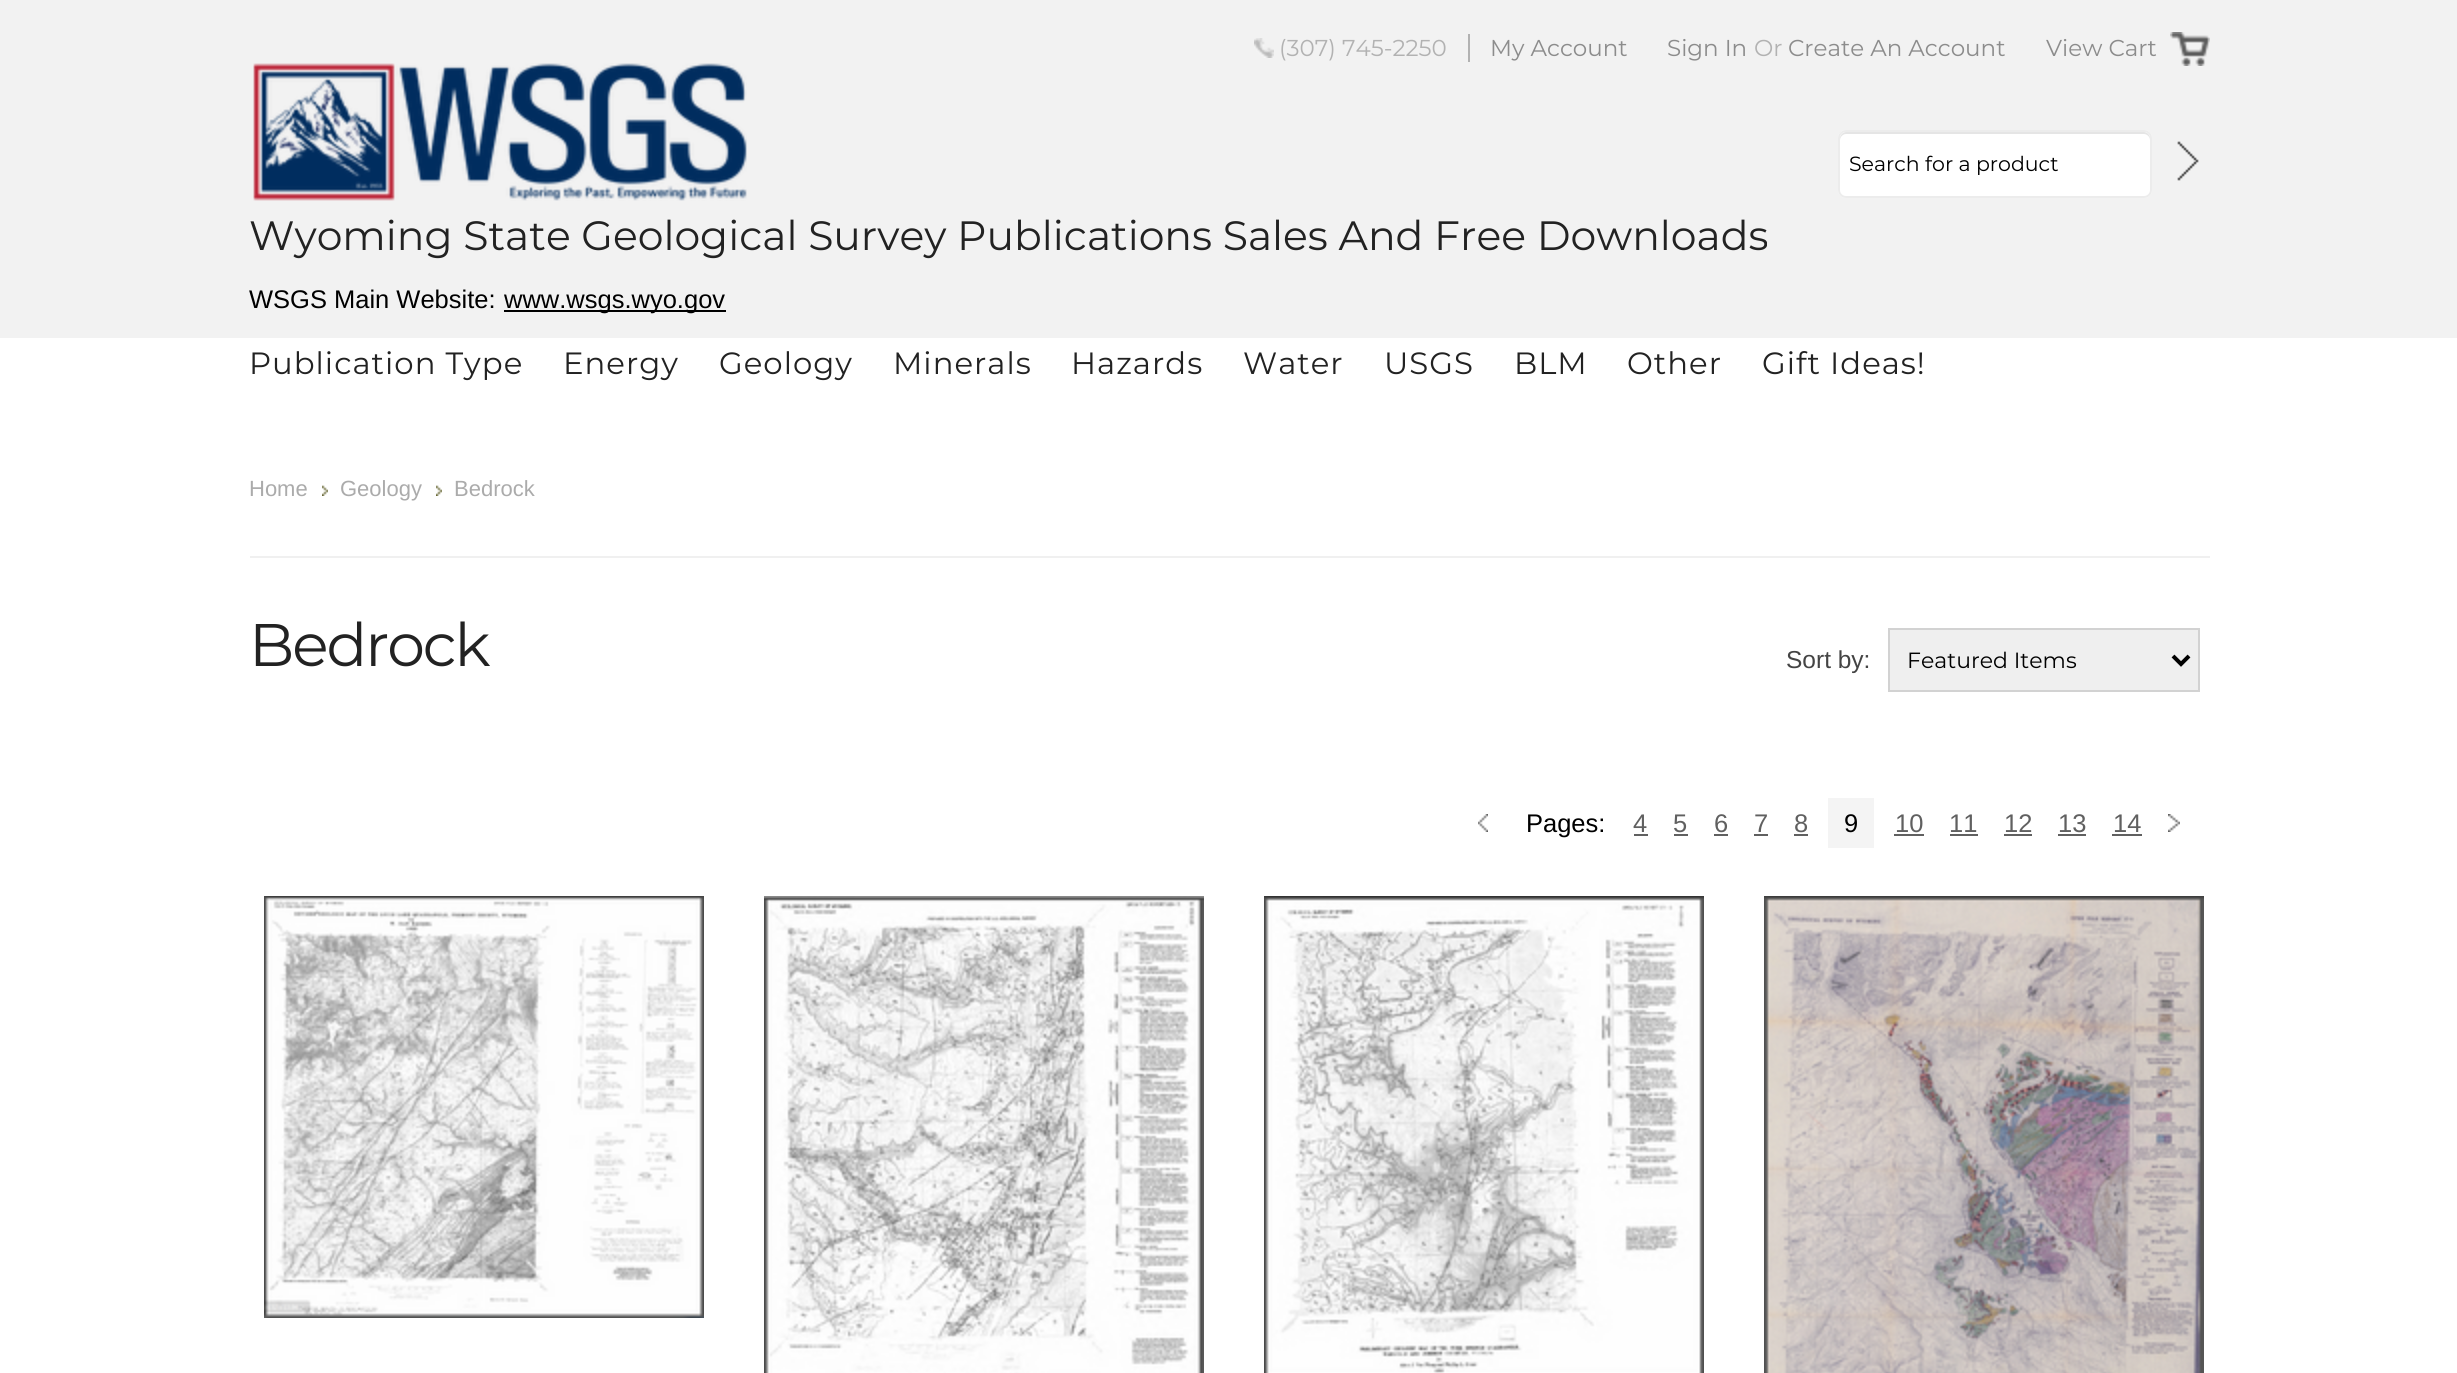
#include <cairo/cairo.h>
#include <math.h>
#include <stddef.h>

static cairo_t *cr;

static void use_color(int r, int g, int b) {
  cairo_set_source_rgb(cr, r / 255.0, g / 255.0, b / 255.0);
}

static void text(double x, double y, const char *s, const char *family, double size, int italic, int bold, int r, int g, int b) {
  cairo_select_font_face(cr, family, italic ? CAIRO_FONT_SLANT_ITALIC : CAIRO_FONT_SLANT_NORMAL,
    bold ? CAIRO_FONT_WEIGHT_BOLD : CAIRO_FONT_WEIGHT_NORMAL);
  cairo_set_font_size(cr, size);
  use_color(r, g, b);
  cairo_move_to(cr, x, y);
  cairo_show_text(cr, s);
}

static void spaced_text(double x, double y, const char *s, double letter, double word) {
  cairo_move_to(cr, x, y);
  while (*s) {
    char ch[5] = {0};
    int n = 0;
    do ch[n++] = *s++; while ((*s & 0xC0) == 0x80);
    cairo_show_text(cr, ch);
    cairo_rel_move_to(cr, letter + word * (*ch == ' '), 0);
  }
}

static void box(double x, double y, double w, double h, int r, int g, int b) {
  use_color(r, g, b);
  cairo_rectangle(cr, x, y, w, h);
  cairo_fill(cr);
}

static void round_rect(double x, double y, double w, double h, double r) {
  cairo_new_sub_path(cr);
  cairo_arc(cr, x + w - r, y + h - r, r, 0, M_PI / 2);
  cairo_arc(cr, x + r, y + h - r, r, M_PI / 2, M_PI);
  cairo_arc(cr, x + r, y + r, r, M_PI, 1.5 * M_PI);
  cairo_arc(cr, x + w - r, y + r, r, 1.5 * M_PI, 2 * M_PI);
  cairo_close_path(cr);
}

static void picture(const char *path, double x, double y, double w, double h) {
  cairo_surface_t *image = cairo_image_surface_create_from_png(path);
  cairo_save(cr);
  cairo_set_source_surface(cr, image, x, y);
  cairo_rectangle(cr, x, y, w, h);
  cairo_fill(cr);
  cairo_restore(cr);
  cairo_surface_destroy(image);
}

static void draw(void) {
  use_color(255, 255, 255);
  cairo_paint(cr);
  box(0, 0, 2457, 338, 242, 242, 242);
  picture("img_01.png", 1254, 38, 20, 20);
  box(1468, 34, 2, 28, 178, 178, 178);
  picture("img_02.png", 2170, 32, 40, 34);
  use_color(255, 255, 255);
  round_rect(1838, 130, 314, 68, 8);
  cairo_fill(cr);
  use_color(229, 229, 229);
  cairo_new_path(cr);
  cairo_move_to(cr, 1846, 134);
  cairo_line_to(cr, 2144, 134);
  cairo_curve_to(cr, 2147, 134, 2150, 137, 2150, 140);
  cairo_line_to(cr, 2150, 138);
  cairo_curve_to(cr, 2150, 135, 2147, 132, 2144, 132);
  cairo_line_to(cr, 1846, 132);
  cairo_curve_to(cr, 1843, 132, 1840, 135, 1840, 138);
  cairo_line_to(cr, 1840, 140);
  cairo_curve_to(cr, 1840, 137, 1843, 134, 1846, 134);
  cairo_close_path(cr);
  cairo_fill(cr);
  round_rect(1839, 131, 312, 66, 7);
  use_color(236, 236, 236);
  cairo_stroke(cr);
  picture("img_03.png", 2177, 141, 22, 40);
  picture("img_04.png", 253, 63, 494, 138);
  box(504, 310, 222, 2, 0, 0, 0);
  box(250, 556, 1960, 2, 240, 240, 240);
  picture("img_05.png", 322, 485, 6, 11);
  picture("img_05.png", 436, 485, 6, 11);
  use_color(239, 239, 239);
  cairo_rectangle(cr, 1889, 629, 310, 62);
  cairo_fill_preserve(cr);
  use_color(210, 210, 210);
  cairo_stroke(cr);
  cairo_new_path(cr);
  cairo_move_to(cr, 2173, 656);
  cairo_line_to(cr, 2181, 664);
  cairo_line_to(cr, 2189, 656);
  use_color(0, 0, 0);
  cairo_set_line_width(cr, 4);
  cairo_stroke(cr);
  picture("img_06.png", 1478, 814, 10, 18);
  box(1634, 834, 14, 2, 96, 96, 96);
  box(1674, 834, 14, 2, 96, 96, 96);
  box(1714, 834, 14, 2, 96, 96, 96);
  box(1754, 834, 14, 2, 96, 96, 96);
  box(1794, 834, 14, 2, 96, 96, 96);
  box(1828, 798, 46, 50, 244, 244, 244);
  box(1894, 834, 30, 2, 96, 96, 96);
  box(1950, 834, 28, 2, 96, 96, 96);
  box(2004, 834, 28, 2, 96, 96, 96);
  box(2058, 834, 28, 2, 96, 96, 96);
  box(2112, 834, 30, 2, 96, 96, 96);
  picture("img_07.png", 2168, 814, 12, 18);
  picture("img_08.png", 264, 896, 440, 422);
  picture("img_09.png", 764, 896, 440, 477);
  picture("img_10.png", 1264, 896, 440, 477);
  picture("img_11.png", 1764, 896, 440, 477);
  text(1279, 56, "(307) 745-2250", "Montserrat Thin", 23, 0, 0, 178, 178, 178);
  text(1490, 56, "My Account", "Montserrat Thin", 23, 0, 0, 140, 140, 140);
  text(1667, 56, "Sign In", "Montserrat Thin", 23, 0, 0, 140, 140, 140);
  text(1754, 56, "Or", "Montserrat Thin", 23, 0, 0, 178, 178, 178);
  text(1788, 56, "Create An Account", "Montserrat Thin", 23, 0, 0, 140, 140, 140);
  text(2046, 56, "View Cart", "Montserrat Thin", 23, 0, 0, 140, 140, 140);
  text(1849, 171, "Search for a product", "Montserrat Thin", 20.5, 0, 0, 0, 0, 0);
  text(249, 250, "Wyoming State Geological Survey Publications Sales And Free Downloads", "Montserrat Thin", 40.95, 0, 0, 34, 34, 34);
  text(249, 308, "WSGS Main Website:", "Liberation Sans", 25.5, 0, 0, 0, 0, 0);
  text(504, 308, "www.wsgs.wyo.gov", "Liberation Sans", 25.5, 0, 0, 0, 0, 0);
  cairo_select_font_face(cr, "Montserrat Thin", CAIRO_FONT_SLANT_NORMAL, CAIRO_FONT_WEIGHT_NORMAL);
  cairo_set_font_size(cr, 30.75);
  use_color(34, 34, 34);
  spaced_text(249, 374, "Publication Type", 1, 0);
  spaced_text(563, 374, "Energy", 1, 0);
  spaced_text(719, 374, "Geology", 1, 0);
  spaced_text(893, 374, "Minerals", 1, 0);
  spaced_text(1071, 374, "Hazards", 1, 0);
  spaced_text(1243, 374, "Water", 1, 0);
  spaced_text(1384, 374, "USGS", 1, 0);
  spaced_text(1514, 374, "BLM", 1, 0);
  spaced_text(1627, 374, "Other", 1, 0);
  spaced_text(1762, 374, "Gift Ideas!", 1, 0);
  text(249, 496, "Home", "Liberation Sans", 22, 0, 0, 171, 171, 171);
  text(340, 496, "Geology", "Liberation Sans", 22, 0, 0, 171, 171, 171);
  text(454, 496, "Bedrock", "Liberation Sans", 22, 0, 0, 171, 171, 171);
  cairo_select_font_face(cr, "Montserrat Thin", CAIRO_FONT_SLANT_NORMAL, CAIRO_FONT_WEIGHT_NORMAL);
  cairo_set_font_size(cr, 60);
  use_color(34, 34, 34);
  spaced_text(249, 666, "Bedrock", -2, 0);
  text(1786, 668, "Sort by:", "Liberation Sans", 24.5, 0, 0, 68, 68, 68);
  text(1907, 668, "Featured Items", "Montserrat Thin", 22, 0, 0, 0, 0, 0);
  text(1526, 832, "Pages:", "Liberation Sans", 25.5, 0, 0, 0, 0, 0);
  text(1633, 832, "4", "Liberation Sans", 25.5, 0, 0, 96, 96, 96);
  text(1673, 832, "5", "Liberation Sans", 25.5, 0, 0, 96, 96, 96);
  text(1714, 832, "6", "Liberation Sans", 25.5, 0, 0, 96, 96, 96);
  text(1754, 832, "7", "Liberation Sans", 25.5, 0, 0, 96, 96, 96);
  text(1794, 832, "8", "Liberation Sans", 25.5, 0, 0, 96, 96, 96);
  text(1844, 832, "9", "Liberation Sans", 25.5, 0, 0, 0, 0, 0);
  text(1895, 832, "10", "Liberation Sans", 25.5, 0, 0, 96, 96, 96);
  text(1949, 832, "11", "Liberation Sans", 25.5, 0, 0, 96, 96, 96);
  text(2004, 832, "12", "Liberation Sans", 25.5, 0, 0, 96, 96, 96);
  text(2058, 832, "13", "Liberation Sans", 25.5, 0, 0, 96, 96, 96);
  text(2113, 832, "14", "Liberation Sans", 25.5, 0, 0, 96, 96, 96);
}

int main(void) {
  cairo_surface_t *surface = cairo_image_surface_create(CAIRO_FORMAT_RGB24, 2457, 1373);
  cr = cairo_create(surface);
  cairo_font_options_t *options = cairo_font_options_create();
  cairo_font_options_set_hint_metrics(options, CAIRO_HINT_METRICS_OFF);
  cairo_font_options_set_hint_style(options, CAIRO_HINT_STYLE_NONE);
  cairo_set_font_options(cr, options);
  cairo_set_miter_limit(cr, 4);
  draw();
  cairo_surface_write_to_png(surface, "out.png");
  cairo_font_options_destroy(options);
  cairo_destroy(cr);
  cairo_surface_destroy(surface);
  return 0;
}
